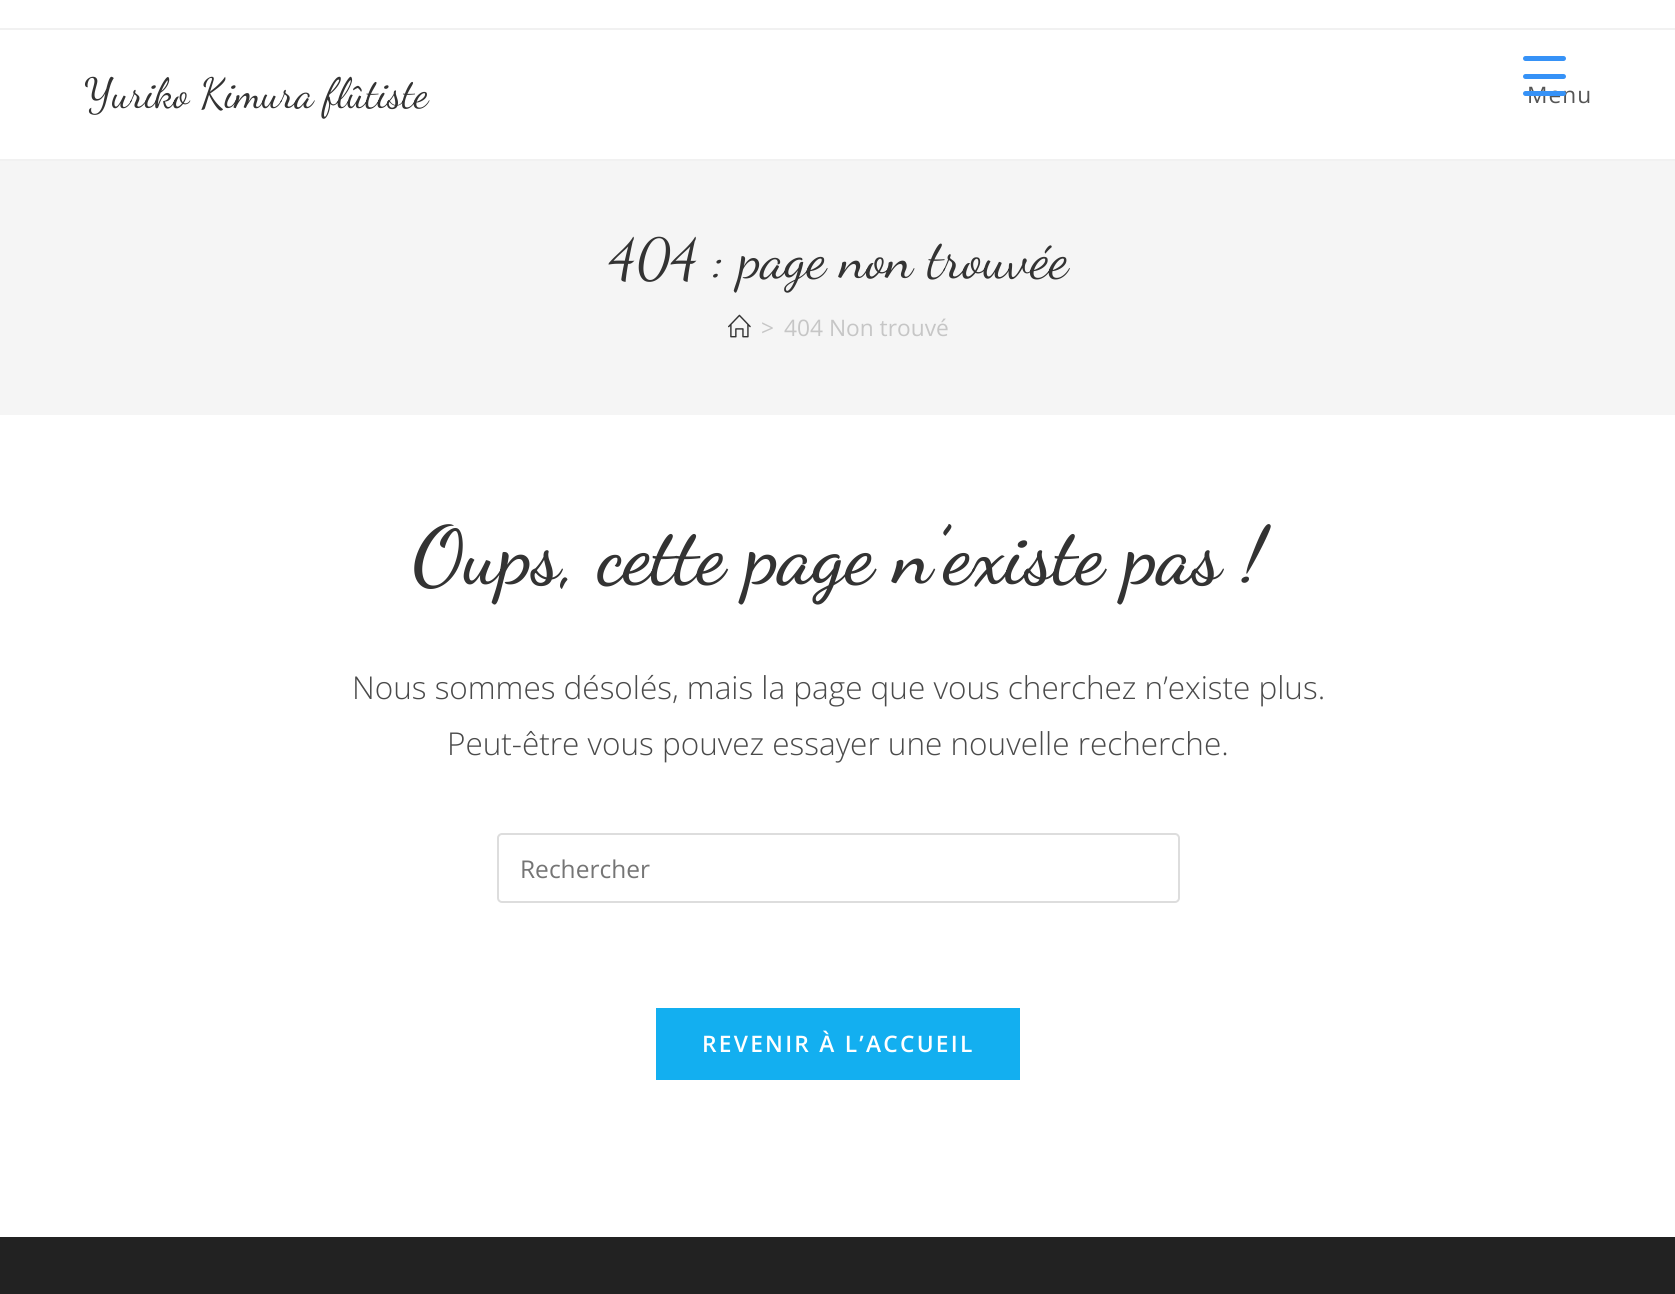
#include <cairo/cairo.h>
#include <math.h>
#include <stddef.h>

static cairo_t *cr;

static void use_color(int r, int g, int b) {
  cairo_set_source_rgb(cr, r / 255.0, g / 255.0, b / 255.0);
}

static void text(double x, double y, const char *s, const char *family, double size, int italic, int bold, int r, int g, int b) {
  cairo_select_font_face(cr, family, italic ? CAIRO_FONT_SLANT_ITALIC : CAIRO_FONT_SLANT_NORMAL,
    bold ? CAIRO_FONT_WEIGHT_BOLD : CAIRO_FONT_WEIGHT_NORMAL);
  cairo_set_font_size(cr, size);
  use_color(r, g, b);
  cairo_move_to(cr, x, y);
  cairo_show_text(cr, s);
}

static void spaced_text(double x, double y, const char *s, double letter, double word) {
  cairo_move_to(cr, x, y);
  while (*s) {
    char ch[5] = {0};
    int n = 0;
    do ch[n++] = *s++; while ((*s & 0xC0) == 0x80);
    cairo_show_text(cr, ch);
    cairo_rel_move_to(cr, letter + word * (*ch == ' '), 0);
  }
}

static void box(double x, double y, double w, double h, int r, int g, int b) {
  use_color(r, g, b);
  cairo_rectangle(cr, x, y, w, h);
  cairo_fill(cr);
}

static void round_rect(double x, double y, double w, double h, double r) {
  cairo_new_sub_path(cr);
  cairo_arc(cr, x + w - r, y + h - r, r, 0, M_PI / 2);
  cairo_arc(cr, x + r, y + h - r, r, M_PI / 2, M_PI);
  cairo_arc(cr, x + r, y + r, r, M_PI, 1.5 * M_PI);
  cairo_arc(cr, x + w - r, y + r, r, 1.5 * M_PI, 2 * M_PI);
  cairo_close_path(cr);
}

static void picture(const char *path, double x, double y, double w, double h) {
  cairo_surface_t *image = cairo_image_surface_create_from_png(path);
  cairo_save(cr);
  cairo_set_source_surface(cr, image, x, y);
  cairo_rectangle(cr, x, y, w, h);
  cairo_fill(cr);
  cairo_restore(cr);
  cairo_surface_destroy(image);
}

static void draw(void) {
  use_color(255, 255, 255);
  cairo_paint(cr);
  use_color(54, 146, 247);
  round_rect(1523, 74, 43, 5, 2.5);
  cairo_fill(cr);
  round_rect(1523, 56, 43, 5, 2.5);
  cairo_fill(cr);
  box(0, 28, 1675, 2, 241, 241, 241);
  box(0, 159, 1675, 2, 241, 241, 241);
  box(0, 161, 1675, 254, 245, 245, 245);
  picture("img_01.png", 728, 314, 23, 24);
  round_rect(498, 834, 681, 68, 4);
  use_color(221, 221, 221);
  cairo_stroke(cr);
  box(656, 1008, 364, 72, 19, 175, 240);
  box(0, 1237, 1675, 57, 34, 34, 34);
  text(84, 107, "Yuriko Kimura flûtiste", "Dancing Script", 42, 0, 0, 51, 51, 51);
  cairo_select_font_face(cr, "Open Sans", CAIRO_FONT_SLANT_NORMAL, CAIRO_FONT_WEIGHT_NORMAL);
  cairo_set_font_size(cr, 22.75);
  use_color(85, 85, 85);
  spaced_text(1527, 103, "Menu", 1, 0);
  use_color(54, 146, 247);
  round_rect(1523, 91, 43, 5, 2.5);
  cairo_fill(cr);
  text(609, 277, "404 : page non trouvée", "Dancing Script", 56, 0, 0, 51, 51, 51);
  text(761, 336, ">", "Open Sans", 22.75, 0, 0, 198, 198, 198);
  text(784, 336, "404 Non trouvé", "Open Sans", 22.75, 0, 0, 198, 198, 198);
  text(412, 582, "Oups, cette page n’existe pas !", "Dancing Script SemiBold", 80.5, 0, 0, 51, 51, 51);
  text(352, 699, "Nous sommes désolés, mais la page que vous cherchez n’existe plus.", "Open Sans Light", 31.5, 0, 0, 74, 74, 74);
  text(447, 755, "Peut-être vous pouvez essayer une nouvelle recherche.", "Open Sans Light", 31.5, 0, 0, 74, 74, 74);
  text(520, 878, "Rechercher", "Open Sans", 24.5, 0, 0, 117, 117, 117);
  cairo_select_font_face(cr, "Open Sans SemiBold", CAIRO_FONT_SLANT_NORMAL, CAIRO_FONT_WEIGHT_NORMAL);
  cairo_set_font_size(cr, 22.75);
  use_color(255, 255, 255);
  spaced_text(702, 1052, "REVENIR À L’ACCUEIL", 2.25, 0);
}

int main(void) {
  cairo_surface_t *surface = cairo_image_surface_create(CAIRO_FORMAT_RGB24, 1675, 1294);
  cr = cairo_create(surface);
  cairo_font_options_t *options = cairo_font_options_create();
  cairo_font_options_set_hint_metrics(options, CAIRO_HINT_METRICS_OFF);
  cairo_font_options_set_hint_style(options, CAIRO_HINT_STYLE_NONE);
  cairo_set_font_options(cr, options);
  cairo_set_miter_limit(cr, 4);
  draw();
  cairo_surface_write_to_png(surface, "out.png");
  cairo_font_options_destroy(options);
  cairo_destroy(cr);
  cairo_surface_destroy(surface);
  return 0;
}
